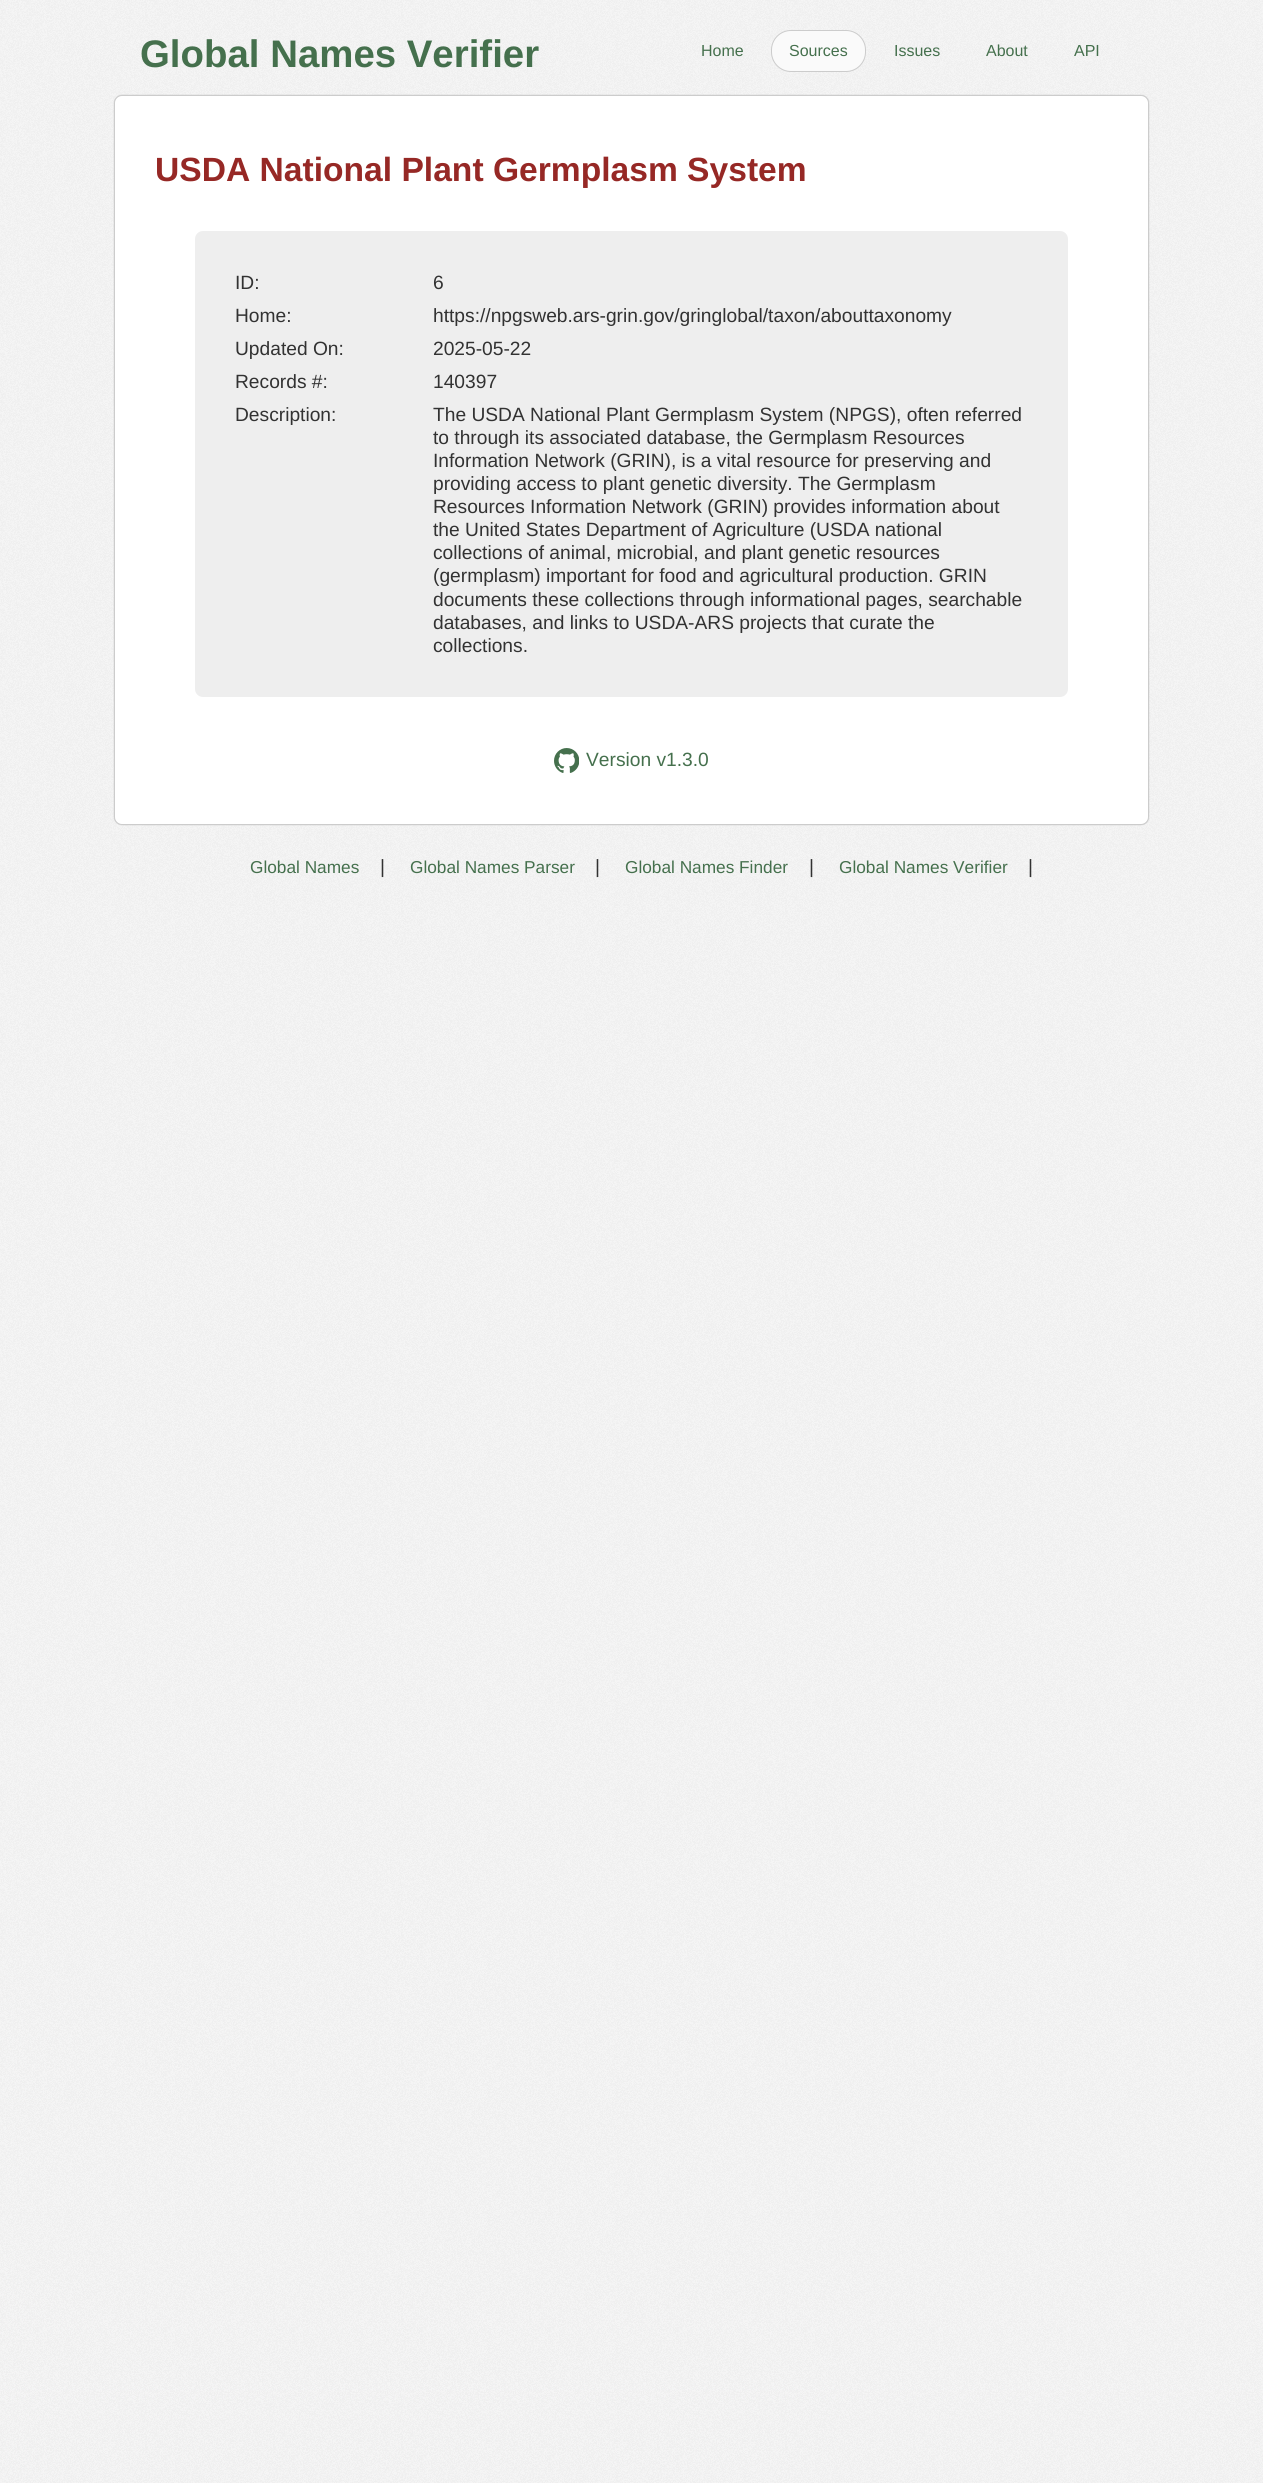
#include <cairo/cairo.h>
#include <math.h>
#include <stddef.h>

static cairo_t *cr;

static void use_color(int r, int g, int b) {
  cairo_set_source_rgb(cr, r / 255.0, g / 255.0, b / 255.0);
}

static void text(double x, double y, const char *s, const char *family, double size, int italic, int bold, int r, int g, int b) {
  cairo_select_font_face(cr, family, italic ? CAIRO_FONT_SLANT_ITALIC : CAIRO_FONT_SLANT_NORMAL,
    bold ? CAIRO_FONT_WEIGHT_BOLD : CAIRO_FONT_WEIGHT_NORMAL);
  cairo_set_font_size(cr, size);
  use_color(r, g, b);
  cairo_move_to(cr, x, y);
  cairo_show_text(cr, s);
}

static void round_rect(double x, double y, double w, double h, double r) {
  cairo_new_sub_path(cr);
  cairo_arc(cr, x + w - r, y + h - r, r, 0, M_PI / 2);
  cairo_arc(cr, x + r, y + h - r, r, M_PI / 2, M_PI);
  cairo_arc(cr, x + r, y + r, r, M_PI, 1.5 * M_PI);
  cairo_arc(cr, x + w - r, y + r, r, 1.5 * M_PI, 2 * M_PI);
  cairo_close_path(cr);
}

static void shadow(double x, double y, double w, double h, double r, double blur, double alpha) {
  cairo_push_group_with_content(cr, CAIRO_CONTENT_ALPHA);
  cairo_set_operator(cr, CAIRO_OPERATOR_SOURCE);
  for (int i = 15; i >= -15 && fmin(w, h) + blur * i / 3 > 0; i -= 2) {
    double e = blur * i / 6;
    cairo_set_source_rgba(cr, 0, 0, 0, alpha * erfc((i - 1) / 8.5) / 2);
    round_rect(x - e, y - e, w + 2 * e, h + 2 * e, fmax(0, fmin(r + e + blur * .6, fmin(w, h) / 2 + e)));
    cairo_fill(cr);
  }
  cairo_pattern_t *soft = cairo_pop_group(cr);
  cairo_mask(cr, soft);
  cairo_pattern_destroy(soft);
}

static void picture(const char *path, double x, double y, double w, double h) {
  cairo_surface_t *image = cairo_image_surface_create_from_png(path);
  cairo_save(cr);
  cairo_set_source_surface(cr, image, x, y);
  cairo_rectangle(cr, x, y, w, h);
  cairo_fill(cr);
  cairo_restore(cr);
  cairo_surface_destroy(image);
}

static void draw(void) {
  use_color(255, 255, 255);
  cairo_paint(cr);
  picture("img_01.png", 0, 0, 1263, 2483);
  use_color(250, 250, 250);
  round_rect(771.5, 30.5, 94, 41, 19.5);
  cairo_fill_preserve(cr);
  use_color(204, 204, 204);
  cairo_set_line_width(cr, 1);
  cairo_stroke(cr);
  use_color(204, 204, 204);
  shadow(114, 95, 1035, 730, 8, 0.5, 1);
  use_color(255, 255, 255);
  round_rect(114.5, 95.5, 1034, 729, 7.5);
  cairo_fill_preserve(cr);
  use_color(204, 204, 204);
  cairo_stroke(cr);
  use_color(238, 238, 238);
  round_rect(195, 231, 873, 466, 8);
  cairo_fill(cr);
  picture("img_02.png", 554, 748, 25, 25);
  text(140, 67, "Global Names Verifier", "Liberation Sans", 38.4, 0, 1, 69, 112, 77);
  text(701, 56, "Home", "Liberation Sans", 16, 0, 0, 69, 112, 77);
  text(789, 56, "Sources", "Liberation Sans", 16, 0, 0, 69, 112, 77);
  text(894, 56, "Issues", "Liberation Sans", 16, 0, 0, 69, 112, 77);
  text(986, 56, "About", "Liberation Sans", 16, 0, 0, 69, 112, 77);
  text(1074, 56, "API", "Liberation Sans", 16, 0, 0, 69, 112, 77);
  text(155, 181, "USDA National Plant Germplasm System", "Liberation Sans", 33.6, 0, 1, 150, 40, 37);
  text(235, 289, "ID:", "Liberation Sans", 19.2, 0, 0, 50, 50, 50);
  text(433, 289, "6", "Liberation Sans", 19.2, 0, 0, 50, 50, 50);
  text(235, 322, "Home:", "Liberation Sans", 19.2, 0, 0, 50, 50, 50);
  text(433, 322, "https://npgsweb.ars-grin.gov/gringlobal/taxon/abouttaxonomy", "Liberation Sans", 19.2, 0, 0, 50, 50, 50);
  text(235, 355, "Updated On:", "Liberation Sans", 19.2, 0, 0, 50, 50, 50);
  text(433, 355, "2025-05-22", "Liberation Sans", 19.2, 0, 0, 50, 50, 50);
  text(235, 388, "Records #:", "Liberation Sans", 19.2, 0, 0, 50, 50, 50);
  text(433, 388, "140397", "Liberation Sans", 19.2, 0, 0, 50, 50, 50);
  text(235, 421, "Description:", "Liberation Sans", 19.2, 0, 0, 50, 50, 50);
  text(433, 421, "The USDA National Plant Germplasm System (NPGS), often referred", "Liberation Sans", 19.2, 0, 0, 50, 50, 50);
  text(433, 444, "to through its associated database, the Germplasm Resources", "Liberation Sans", 19.2, 0, 0, 50, 50, 50);
  text(433, 467, "Information Network (GRIN), is a vital resource for preserving and", "Liberation Sans", 19.2, 0, 0, 50, 50, 50);
  text(433, 490, "providing access to plant genetic diversity. The Germplasm", "Liberation Sans", 19.2, 0, 0, 50, 50, 50);
  text(433, 513, "Resources Information Network (GRIN) provides information about", "Liberation Sans", 19.2, 0, 0, 50, 50, 50);
  text(433, 536, "the United States Department of Agriculture (USDA national", "Liberation Sans", 19.2, 0, 0, 50, 50, 50);
  text(433, 559, "collections of animal, microbial, and plant genetic resources", "Liberation Sans", 19.2, 0, 0, 50, 50, 50);
  text(433, 582, "(germplasm) important for food and agricultural production. GRIN", "Liberation Sans", 19.2, 0, 0, 50, 50, 50);
  text(433, 606, "documents these collections through informational pages, searchable", "Liberation Sans", 19.2, 0, 0, 50, 50, 50);
  text(433, 629, "databases, and links to USDA-ARS projects that curate the", "Liberation Sans", 19.2, 0, 0, 50, 50, 50);
  text(433, 652, "collections.", "Liberation Sans", 19.2, 0, 0, 50, 50, 50);
  text(586, 766, "Version v1.3.0", "Liberation Sans", 19.2, 0, 0, 69, 112, 77);
  text(250, 873, "Global Names", "Liberation Sans", 17.25, 0, 0, 69, 112, 77);
  text(380, 873, "|", "Liberation Sans", 19.2, 0, 0, 50, 50, 50);
  text(410, 873, "Global Names Parser", "Liberation Sans", 17.25, 0, 0, 69, 112, 77);
  text(595, 873, "|", "Liberation Sans", 19.2, 0, 0, 50, 50, 50);
  text(625, 873, "Global Names Finder", "Liberation Sans", 17.25, 0, 0, 69, 112, 77);
  text(809, 873, "|", "Liberation Sans", 19.2, 0, 0, 50, 50, 50);
  text(839, 873, "Global Names Verifier", "Liberation Sans", 17.25, 0, 0, 69, 112, 77);
  text(1028, 873, "|", "Liberation Sans", 19.2, 0, 0, 50, 50, 50);
}

int main(void) {
  cairo_surface_t *surface = cairo_image_surface_create(CAIRO_FORMAT_RGB24, 1263, 2483);
  cr = cairo_create(surface);
  cairo_font_options_t *options = cairo_font_options_create();
  cairo_font_options_set_hint_metrics(options, CAIRO_HINT_METRICS_OFF);
  cairo_font_options_set_hint_style(options, CAIRO_HINT_STYLE_NONE);
  cairo_set_font_options(cr, options);
  cairo_set_miter_limit(cr, 4);
  draw();
  cairo_surface_write_to_png(surface, "out.png");
  cairo_font_options_destroy(options);
  cairo_destroy(cr);
  cairo_surface_destroy(surface);
  return 0;
}
